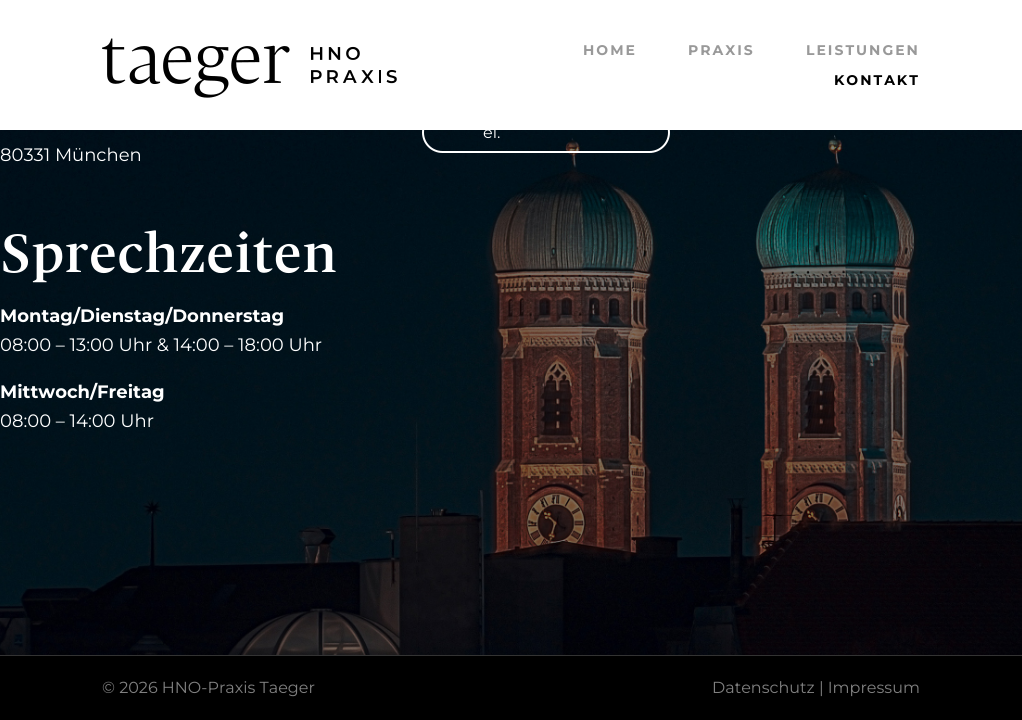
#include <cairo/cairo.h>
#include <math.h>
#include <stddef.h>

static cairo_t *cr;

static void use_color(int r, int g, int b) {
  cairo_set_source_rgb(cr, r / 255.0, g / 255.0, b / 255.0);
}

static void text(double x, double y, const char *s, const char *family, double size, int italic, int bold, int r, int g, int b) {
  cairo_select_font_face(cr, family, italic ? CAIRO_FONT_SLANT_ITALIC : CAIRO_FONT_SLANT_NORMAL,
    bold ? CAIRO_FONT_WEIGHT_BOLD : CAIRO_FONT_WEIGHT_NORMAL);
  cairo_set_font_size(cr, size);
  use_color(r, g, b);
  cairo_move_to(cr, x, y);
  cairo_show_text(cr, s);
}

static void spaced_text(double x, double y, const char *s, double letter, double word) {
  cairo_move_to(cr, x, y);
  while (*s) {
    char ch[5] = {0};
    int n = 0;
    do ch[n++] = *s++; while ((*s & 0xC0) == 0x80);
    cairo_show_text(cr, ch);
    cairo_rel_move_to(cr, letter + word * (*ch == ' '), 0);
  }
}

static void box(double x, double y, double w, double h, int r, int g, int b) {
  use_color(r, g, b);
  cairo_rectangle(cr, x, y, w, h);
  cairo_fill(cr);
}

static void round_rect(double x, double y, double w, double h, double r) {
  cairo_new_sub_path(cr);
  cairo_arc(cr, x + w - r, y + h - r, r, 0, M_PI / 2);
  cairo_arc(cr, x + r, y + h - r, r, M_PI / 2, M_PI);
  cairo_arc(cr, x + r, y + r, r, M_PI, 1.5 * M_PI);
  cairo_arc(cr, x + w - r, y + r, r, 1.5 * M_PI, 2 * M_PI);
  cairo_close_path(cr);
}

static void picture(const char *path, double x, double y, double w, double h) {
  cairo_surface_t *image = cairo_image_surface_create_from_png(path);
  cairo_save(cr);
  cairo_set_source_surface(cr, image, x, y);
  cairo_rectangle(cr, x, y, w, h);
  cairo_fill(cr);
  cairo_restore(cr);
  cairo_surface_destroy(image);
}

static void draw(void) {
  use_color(255, 255, 255);
  cairo_paint(cr);
  picture("img_01.png", 102, 38, 295, 60);
  picture("img_02.png", 0, 130, 1022, 525);
  round_rect(423, 113, 246, 39, 19.5);
  use_color(255, 255, 255);
  cairo_stroke(cr);
  box(0, 656, 1022, 64, 0, 0, 0);
  box(0, 655, 1022, 1, 51, 51, 51);
  cairo_select_font_face(cr, "Montserrat", CAIRO_FONT_SLANT_NORMAL, CAIRO_FONT_WEIGHT_BOLD);
  cairo_set_font_size(cr, 14);
  use_color(153, 153, 153);
  spaced_text(583, 55, "HOME", 2, 0);
  spaced_text(688, 55, "PRAXIS", 2, 0);
  spaced_text(806, 55, "LEISTUNGEN", 2, 0);
  use_color(0, 0, 0);
  spaced_text(834, 85, "KONTAKT", 2, 0);
  text(483, 138, "el.", "Montserrat", 16, 0, 0, 255, 255, 255);
  text(0, 161, "80331 München", "Montserrat", 18, 0, 0, 255, 255, 255);
  text(0, 272, "Sprechzeiten", "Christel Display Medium", 56, 0, 0, 255, 255, 255);
  text(0, 322, "Montag/Dienstag/Donnerstag", "Montserrat", 18, 0, 1, 255, 255, 255);
  text(0, 351, "08:00 – 13:00 Uhr & 14:00 – 18:00 Uhr", "Montserrat", 18, 0, 0, 255, 255, 255);
  text(0, 398, "Mittwoch/Freitag", "Montserrat", 18, 0, 1, 255, 255, 255);
  text(0, 427, "08:00 – 14:00 Uhr", "Montserrat", 18, 0, 0, 255, 255, 255);
  text(102, 693, "© 2026 HNO-Praxis Taeger", "Montserrat", 16, 0, 0, 128, 128, 128);
  text(712, 693, "Datenschutz | Impressum", "Montserrat", 16, 0, 0, 128, 128, 128);
}

int main(void) {
  cairo_surface_t *surface = cairo_image_surface_create(CAIRO_FORMAT_RGB24, 1022, 720);
  cr = cairo_create(surface);
  cairo_font_options_t *options = cairo_font_options_create();
  cairo_font_options_set_hint_metrics(options, CAIRO_HINT_METRICS_OFF);
  cairo_font_options_set_hint_style(options, CAIRO_HINT_STYLE_NONE);
  cairo_set_font_options(cr, options);
  cairo_set_miter_limit(cr, 4);
  draw();
  cairo_surface_write_to_png(surface, "out.png");
  cairo_font_options_destroy(options);
  cairo_destroy(cr);
  cairo_surface_destroy(surface);
  return 0;
}
